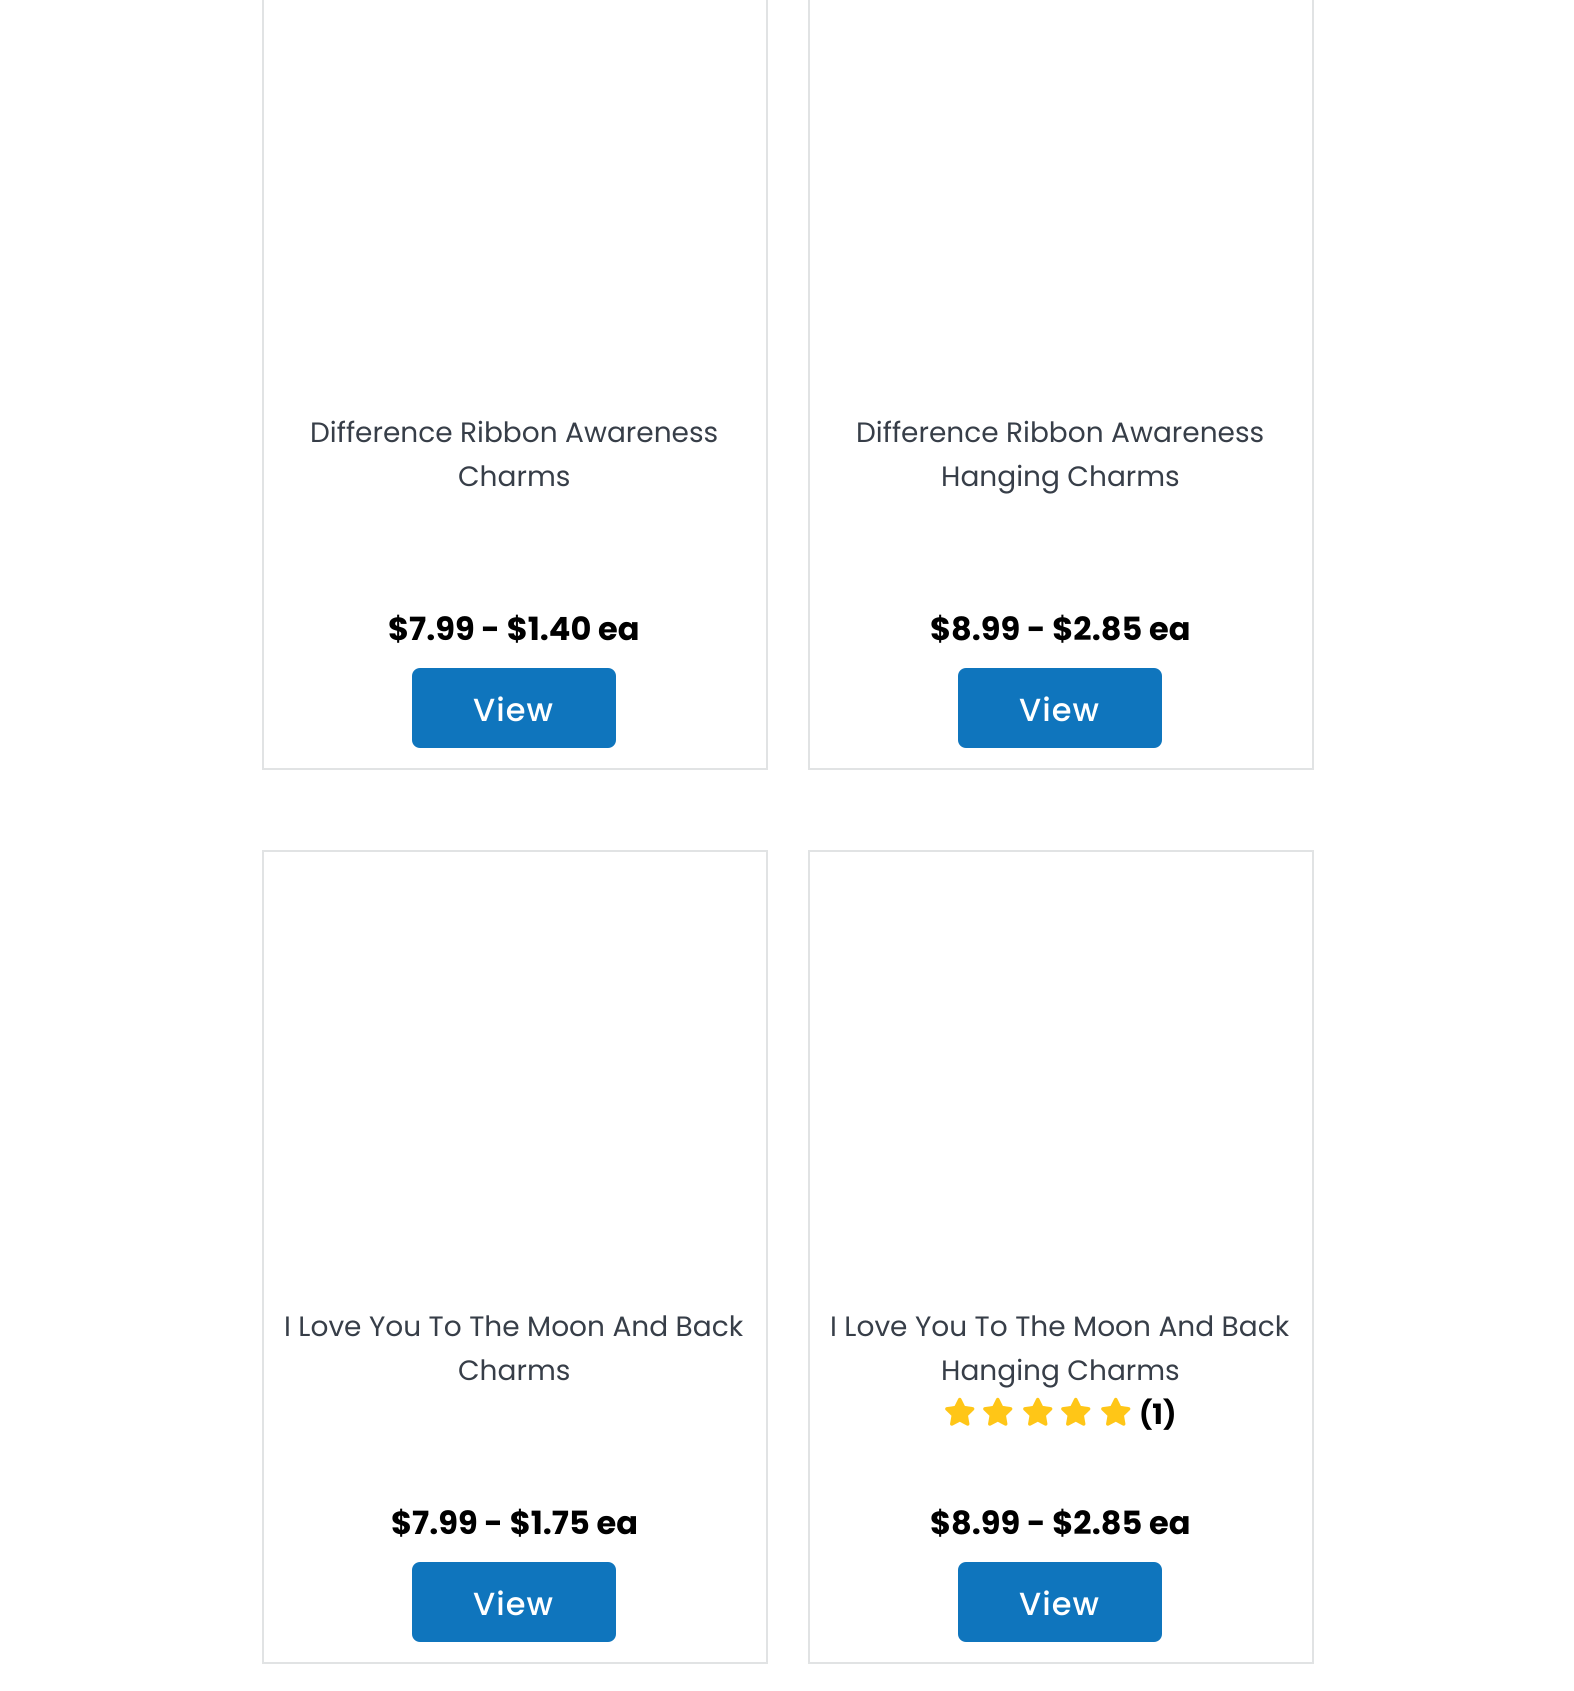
#include <cairo/cairo.h>
#include <math.h>
#include <stddef.h>

static cairo_t *cr;

static void use_color(int r, int g, int b) {
  cairo_set_source_rgb(cr, r / 255.0, g / 255.0, b / 255.0);
}

static void text(double x, double y, const char *s, const char *family, double size, int italic, int bold, int r, int g, int b) {
  cairo_select_font_face(cr, family, italic ? CAIRO_FONT_SLANT_ITALIC : CAIRO_FONT_SLANT_NORMAL,
    bold ? CAIRO_FONT_WEIGHT_BOLD : CAIRO_FONT_WEIGHT_NORMAL);
  cairo_set_font_size(cr, size);
  use_color(r, g, b);
  cairo_move_to(cr, x, y);
  cairo_show_text(cr, s);
}

static void spaced_text(double x, double y, const char *s, double letter, double word) {
  cairo_move_to(cr, x, y);
  while (*s) {
    char ch[5] = {0};
    int n = 0;
    do ch[n++] = *s++; while ((*s & 0xC0) == 0x80);
    cairo_show_text(cr, ch);
    cairo_rel_move_to(cr, letter + word * (*ch == ' '), 0);
  }
}

static void round_rect(double x, double y, double w, double h, double r) {
  cairo_new_sub_path(cr);
  cairo_arc(cr, x + w - r, y + h - r, r, 0, M_PI / 2);
  cairo_arc(cr, x + r, y + h - r, r, M_PI / 2, M_PI);
  cairo_arc(cr, x + r, y + r, r, M_PI, 1.5 * M_PI);
  cairo_arc(cr, x + w - r, y + r, r, 1.5 * M_PI, 2 * M_PI);
  cairo_close_path(cr);
}

static void picture(const char *path, double x, double y, double w, double h) {
  cairo_surface_t *image = cairo_image_surface_create_from_png(path);
  cairo_save(cr);
  cairo_set_source_surface(cr, image, x, y);
  cairo_rectangle(cr, x, y, w, h);
  cairo_fill(cr);
  cairo_restore(cr);
  cairo_surface_destroy(image);
}

static void draw(void) {
  use_color(255, 255, 255);
  cairo_paint(cr);
  cairo_rectangle(cr, 263, -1, 504, 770);
  use_color(225, 227, 228);
  cairo_stroke(cr);
  use_color(15, 117, 189);
  round_rect(412, 668, 204, 80, 8);
  cairo_fill(cr);
  cairo_rectangle(cr, 809, -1, 504, 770);
  use_color(225, 227, 228);
  cairo_stroke(cr);
  use_color(15, 117, 189);
  round_rect(958, 668, 204, 80, 8);
  cairo_fill(cr);
  cairo_rectangle(cr, 263, 851, 504, 812);
  use_color(225, 227, 228);
  cairo_stroke(cr);
  use_color(15, 117, 189);
  round_rect(412, 1562, 204, 80, 8);
  cairo_fill(cr);
  cairo_rectangle(cr, 809, 851, 504, 812);
  use_color(225, 227, 228);
  cairo_stroke(cr);
  picture("img_01.png", 945, 1397, 30, 29);
  picture("img_01.png", 983, 1397, 30, 29);
  picture("img_01.png", 1023, 1397, 30, 29);
  picture("img_01.png", 1061, 1397, 30, 29);
  picture("img_01.png", 1101, 1397, 30, 29);
  use_color(15, 117, 189);
  round_rect(958, 1562, 204, 80, 8);
  cairo_fill(cr);
  text(310, 442, "Difference Ribbon Awareness", "Poppins", 28, 0, 0, 55, 62, 72);
  text(458, 486, "Charms", "Poppins", 28, 0, 0, 55, 62, 72);
  text(388, 640, "$7.99 - $1.40 ea", "Poppins", 32, 0, 1, 0, 0, 0);
  cairo_select_font_face(cr, "Poppins Medium", CAIRO_FONT_SLANT_NORMAL, CAIRO_FONT_WEIGHT_NORMAL);
  use_color(255, 255, 255);
  spaced_text(473, 721, "View", 1, 0);
  text(856, 442, "Difference Ribbon Awareness", "Poppins", 28, 0, 0, 55, 62, 72);
  text(941, 486, "Hanging Charms", "Poppins", 28, 0, 0, 55, 62, 72);
  text(930, 640, "$8.99 - $2.85 ea", "Poppins", 32, 0, 1, 0, 0, 0);
  cairo_select_font_face(cr, "Poppins Medium", CAIRO_FONT_SLANT_NORMAL, CAIRO_FONT_WEIGHT_NORMAL);
  use_color(255, 255, 255);
  spaced_text(1019, 721, "View", 1, 0);
  text(284, 1336, "I Love You To The Moon And Back", "Poppins", 28, 0, 0, 55, 62, 72);
  text(458, 1380, "Charms", "Poppins", 28, 0, 0, 55, 62, 72);
  text(391, 1534, "$7.99 - $1.75 ea", "Poppins", 32, 0, 1, 0, 0, 0);
  cairo_select_font_face(cr, "Poppins Medium", CAIRO_FONT_SLANT_NORMAL, CAIRO_FONT_WEIGHT_NORMAL);
  use_color(255, 255, 255);
  spaced_text(473, 1615, "View", 1, 0);
  text(830, 1336, "I Love You To The Moon And Back", "Poppins", 28, 0, 0, 55, 62, 72);
  text(941, 1380, "Hanging Charms", "Poppins", 28, 0, 0, 55, 62, 72);
  text(1139, 1424, "(1)", "Poppins", 28, 0, 1, 0, 0, 0);
  text(930, 1534, "$8.99 - $2.85 ea", "Poppins", 32, 0, 1, 0, 0, 0);
  cairo_select_font_face(cr, "Poppins Medium", CAIRO_FONT_SLANT_NORMAL, CAIRO_FONT_WEIGHT_NORMAL);
  use_color(255, 255, 255);
  spaced_text(1019, 1615, "View", 1, 0);
}

int main(void) {
  cairo_surface_t *surface = cairo_image_surface_create(CAIRO_FORMAT_RGB24, 1574, 1691);
  cr = cairo_create(surface);
  cairo_font_options_t *options = cairo_font_options_create();
  cairo_font_options_set_hint_metrics(options, CAIRO_HINT_METRICS_OFF);
  cairo_font_options_set_hint_style(options, CAIRO_HINT_STYLE_NONE);
  cairo_set_font_options(cr, options);
  cairo_set_miter_limit(cr, 4);
  draw();
  cairo_surface_write_to_png(surface, "out.png");
  cairo_font_options_destroy(options);
  cairo_destroy(cr);
  cairo_surface_destroy(surface);
  return 0;
}
